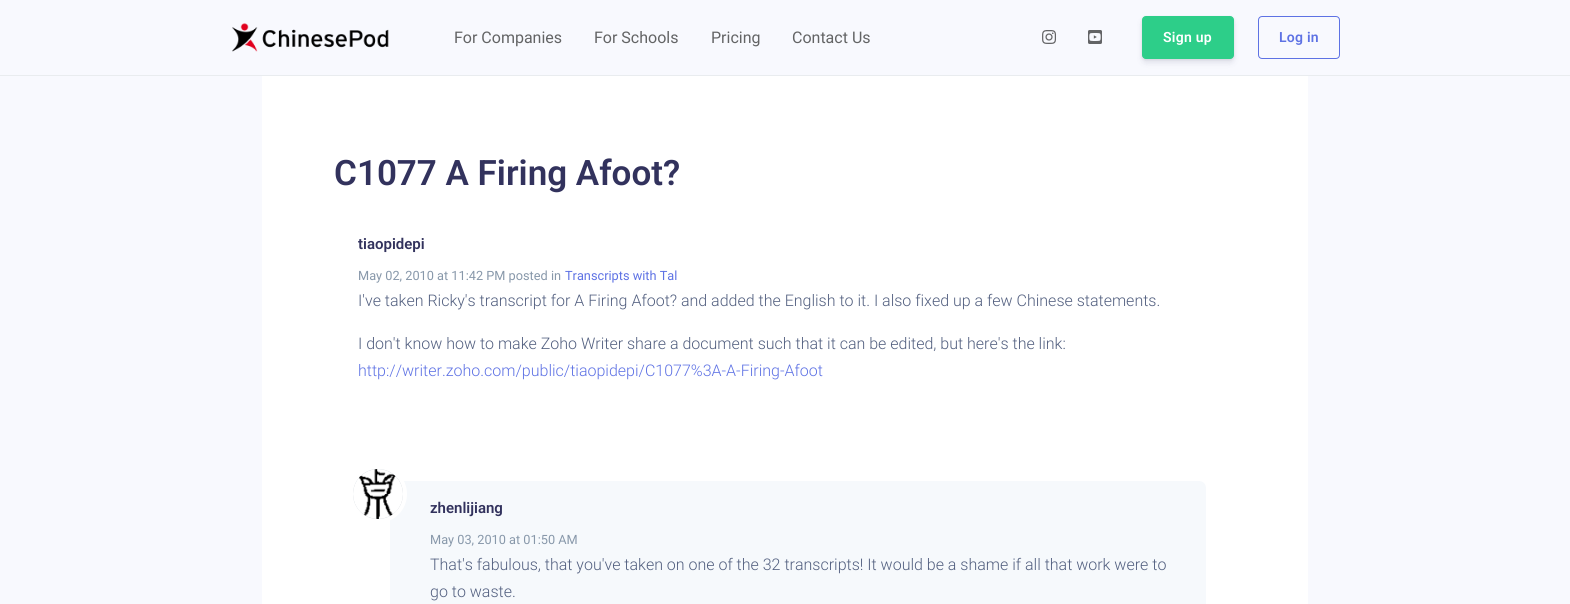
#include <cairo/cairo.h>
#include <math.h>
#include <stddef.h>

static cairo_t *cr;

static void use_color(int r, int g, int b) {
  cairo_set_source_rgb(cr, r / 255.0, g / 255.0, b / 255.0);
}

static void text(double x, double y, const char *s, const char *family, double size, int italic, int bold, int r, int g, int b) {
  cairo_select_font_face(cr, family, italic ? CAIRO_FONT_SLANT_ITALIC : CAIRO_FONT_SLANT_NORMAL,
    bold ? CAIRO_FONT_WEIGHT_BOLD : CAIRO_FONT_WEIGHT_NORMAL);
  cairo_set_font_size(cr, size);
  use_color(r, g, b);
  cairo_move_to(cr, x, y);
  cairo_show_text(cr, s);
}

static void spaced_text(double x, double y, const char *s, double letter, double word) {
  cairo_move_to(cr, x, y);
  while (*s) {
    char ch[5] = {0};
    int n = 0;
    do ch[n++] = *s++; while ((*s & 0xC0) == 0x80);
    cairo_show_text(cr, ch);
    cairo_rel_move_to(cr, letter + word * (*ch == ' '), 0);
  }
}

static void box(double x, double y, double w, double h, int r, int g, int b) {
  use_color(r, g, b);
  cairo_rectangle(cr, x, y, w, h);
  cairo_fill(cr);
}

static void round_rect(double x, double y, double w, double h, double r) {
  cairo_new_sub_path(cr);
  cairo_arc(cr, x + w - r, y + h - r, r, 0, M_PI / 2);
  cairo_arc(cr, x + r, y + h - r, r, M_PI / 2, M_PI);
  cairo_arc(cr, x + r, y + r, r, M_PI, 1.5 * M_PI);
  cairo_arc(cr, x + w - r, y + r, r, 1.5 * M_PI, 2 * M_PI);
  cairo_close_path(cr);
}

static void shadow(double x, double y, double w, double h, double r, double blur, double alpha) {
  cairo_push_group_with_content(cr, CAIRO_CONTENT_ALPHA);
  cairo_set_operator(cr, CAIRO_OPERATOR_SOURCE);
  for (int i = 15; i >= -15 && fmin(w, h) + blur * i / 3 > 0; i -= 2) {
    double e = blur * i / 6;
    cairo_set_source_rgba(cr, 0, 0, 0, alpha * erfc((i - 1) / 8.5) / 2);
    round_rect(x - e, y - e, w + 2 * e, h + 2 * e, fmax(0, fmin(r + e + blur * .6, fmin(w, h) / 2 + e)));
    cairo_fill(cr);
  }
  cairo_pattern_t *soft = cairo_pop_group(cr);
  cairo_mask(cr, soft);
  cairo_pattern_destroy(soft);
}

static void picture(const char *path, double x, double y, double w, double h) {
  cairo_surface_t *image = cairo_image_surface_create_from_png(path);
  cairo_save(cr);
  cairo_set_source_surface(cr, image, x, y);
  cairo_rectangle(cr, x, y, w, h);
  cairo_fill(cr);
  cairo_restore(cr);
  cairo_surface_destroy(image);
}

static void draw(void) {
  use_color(248, 249, 254);
  cairo_paint(cr);
  box(0, 75, 1570, 1, 233, 236, 239);
  picture("img_01.png", 232, 23, 157, 29);
  picture("img_02.png", 1042, 30, 14, 14);
  picture("img_03.png", 1088, 30, 14, 14);
  use_color(0, 0, 0);
  shadow(1142, 17, 92, 43, 4, 1.5, 0.08);
  use_color(50, 50, 93);
  shadow(1142, 20, 92, 43, 4, 3, 0.11);
  use_color(45, 206, 137);
  round_rect(1142.5, 16.5, 91, 42, 3.5);
  cairo_fill_preserve(cr);
  cairo_set_line_width(cr, 1);
  cairo_stroke(cr);
  round_rect(1258.5, 16.5, 81, 42, 3.5);
  use_color(94, 114, 228);
  cairo_stroke(cr);
  box(262, 76, 1046, 528, 255, 255, 255);
  use_color(246, 249, 252);
  cairo_new_path(cr);
  cairo_move_to(cr, 390, 481);
  cairo_line_to(cr, 1199, 481);
  cairo_curve_to(cr, 1203, 481, 1206, 484, 1206, 488);
  cairo_line_to(cr, 1206, 604);
  cairo_curve_to(cr, 1206, 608, 1203, 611, 1199, 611);
  cairo_line_to(cr, 397, 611);
  cairo_curve_to(cr, 393, 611, 390, 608, 390, 604);
  cairo_close_path(cr);
  cairo_fill(cr);
  use_color(206, 212, 218);
  cairo_arc(cr, 378, 494, 27, 0, 2 * M_PI);
  cairo_fill_preserve(cr);
  use_color(255, 255, 255);
  cairo_set_line_width(cr, 4);
  cairo_stroke(cr);
  picture("img_04.png", 353, 469, 50, 50);
  text(454, 43, "For Companies", "Roboto", 16, 0, 0, 99, 100, 101);
  text(594, 43, "For Schools", "Roboto", 16, 0, 0, 99, 100, 101);
  text(711, 43, "Pricing", "Roboto", 16, 0, 0, 99, 100, 101);
  text(792, 43, "Contact Us", "Roboto", 16, 0, 0, 99, 100, 101);
  cairo_select_font_face(cr, "Roboto SemiBold", CAIRO_FONT_SLANT_NORMAL, CAIRO_FONT_WEIGHT_NORMAL);
  cairo_set_font_size(cr, 14);
  use_color(255, 255, 255);
  spaced_text(1163, 42, "Sign up", 0.25, 0);
  use_color(94, 114, 228);
  spaced_text(1279, 42, "Log in", 0.25, 0);
  text(334, 185, "C1077 A Firing Afoot?", "Roboto SemiBold", 35, 0, 0, 50, 50, 93);
  text(358, 249, "tiaopidepi", "Roboto SemiBold", 15, 0, 0, 50, 50, 93);
  text(358, 280, "May 02, 2010 at 11:42 PM posted in", "Roboto", 12.75, 0, 0, 136, 152, 170);
  text(565, 280, "Transcripts with Tal", "Roboto", 12.75, 0, 0, 94, 114, 228);
  text(358, 306, "I've taken Ricky's transcript for A Firing Afoot? and added the English to it. I also fixed up a few Chinese statements.", "Roboto Light", 16, 0, 0, 82, 95, 127);
  text(358, 349, "I don't know how to make Zoho Writer share a document such that it can be edited, but here's the link:", "Roboto Light", 16, 0, 0, 82, 95, 127);
  text(358, 376, "http://writer.zoho.com/public/tiaopidepi/C1077%3A-A-Firing-Afoot", "Roboto Light", 16, 0, 0, 94, 114, 228);
  text(430, 513, "zhenlijiang", "Roboto SemiBold", 15, 0, 0, 50, 50, 93);
  text(430, 544, "May 03, 2010 at 01:50 AM", "Roboto", 12.75, 0, 0, 136, 152, 170);
  text(430, 570, "That's fabulous, that you've taken on one of the 32 transcripts! It would be a shame if all that work were to", "Roboto Light", 16, 0, 0, 82, 95, 127);
  text(430, 597, "go to waste.", "Roboto Light", 16, 0, 0, 82, 95, 127);
}

int main(void) {
  cairo_surface_t *surface = cairo_image_surface_create(CAIRO_FORMAT_RGB24, 1570, 604);
  cr = cairo_create(surface);
  cairo_font_options_t *options = cairo_font_options_create();
  cairo_font_options_set_hint_metrics(options, CAIRO_HINT_METRICS_OFF);
  cairo_font_options_set_hint_style(options, CAIRO_HINT_STYLE_NONE);
  cairo_set_font_options(cr, options);
  cairo_set_miter_limit(cr, 4);
  draw();
  cairo_surface_write_to_png(surface, "out.png");
  cairo_font_options_destroy(options);
  cairo_destroy(cr);
  cairo_surface_destroy(surface);
  return 0;
}
